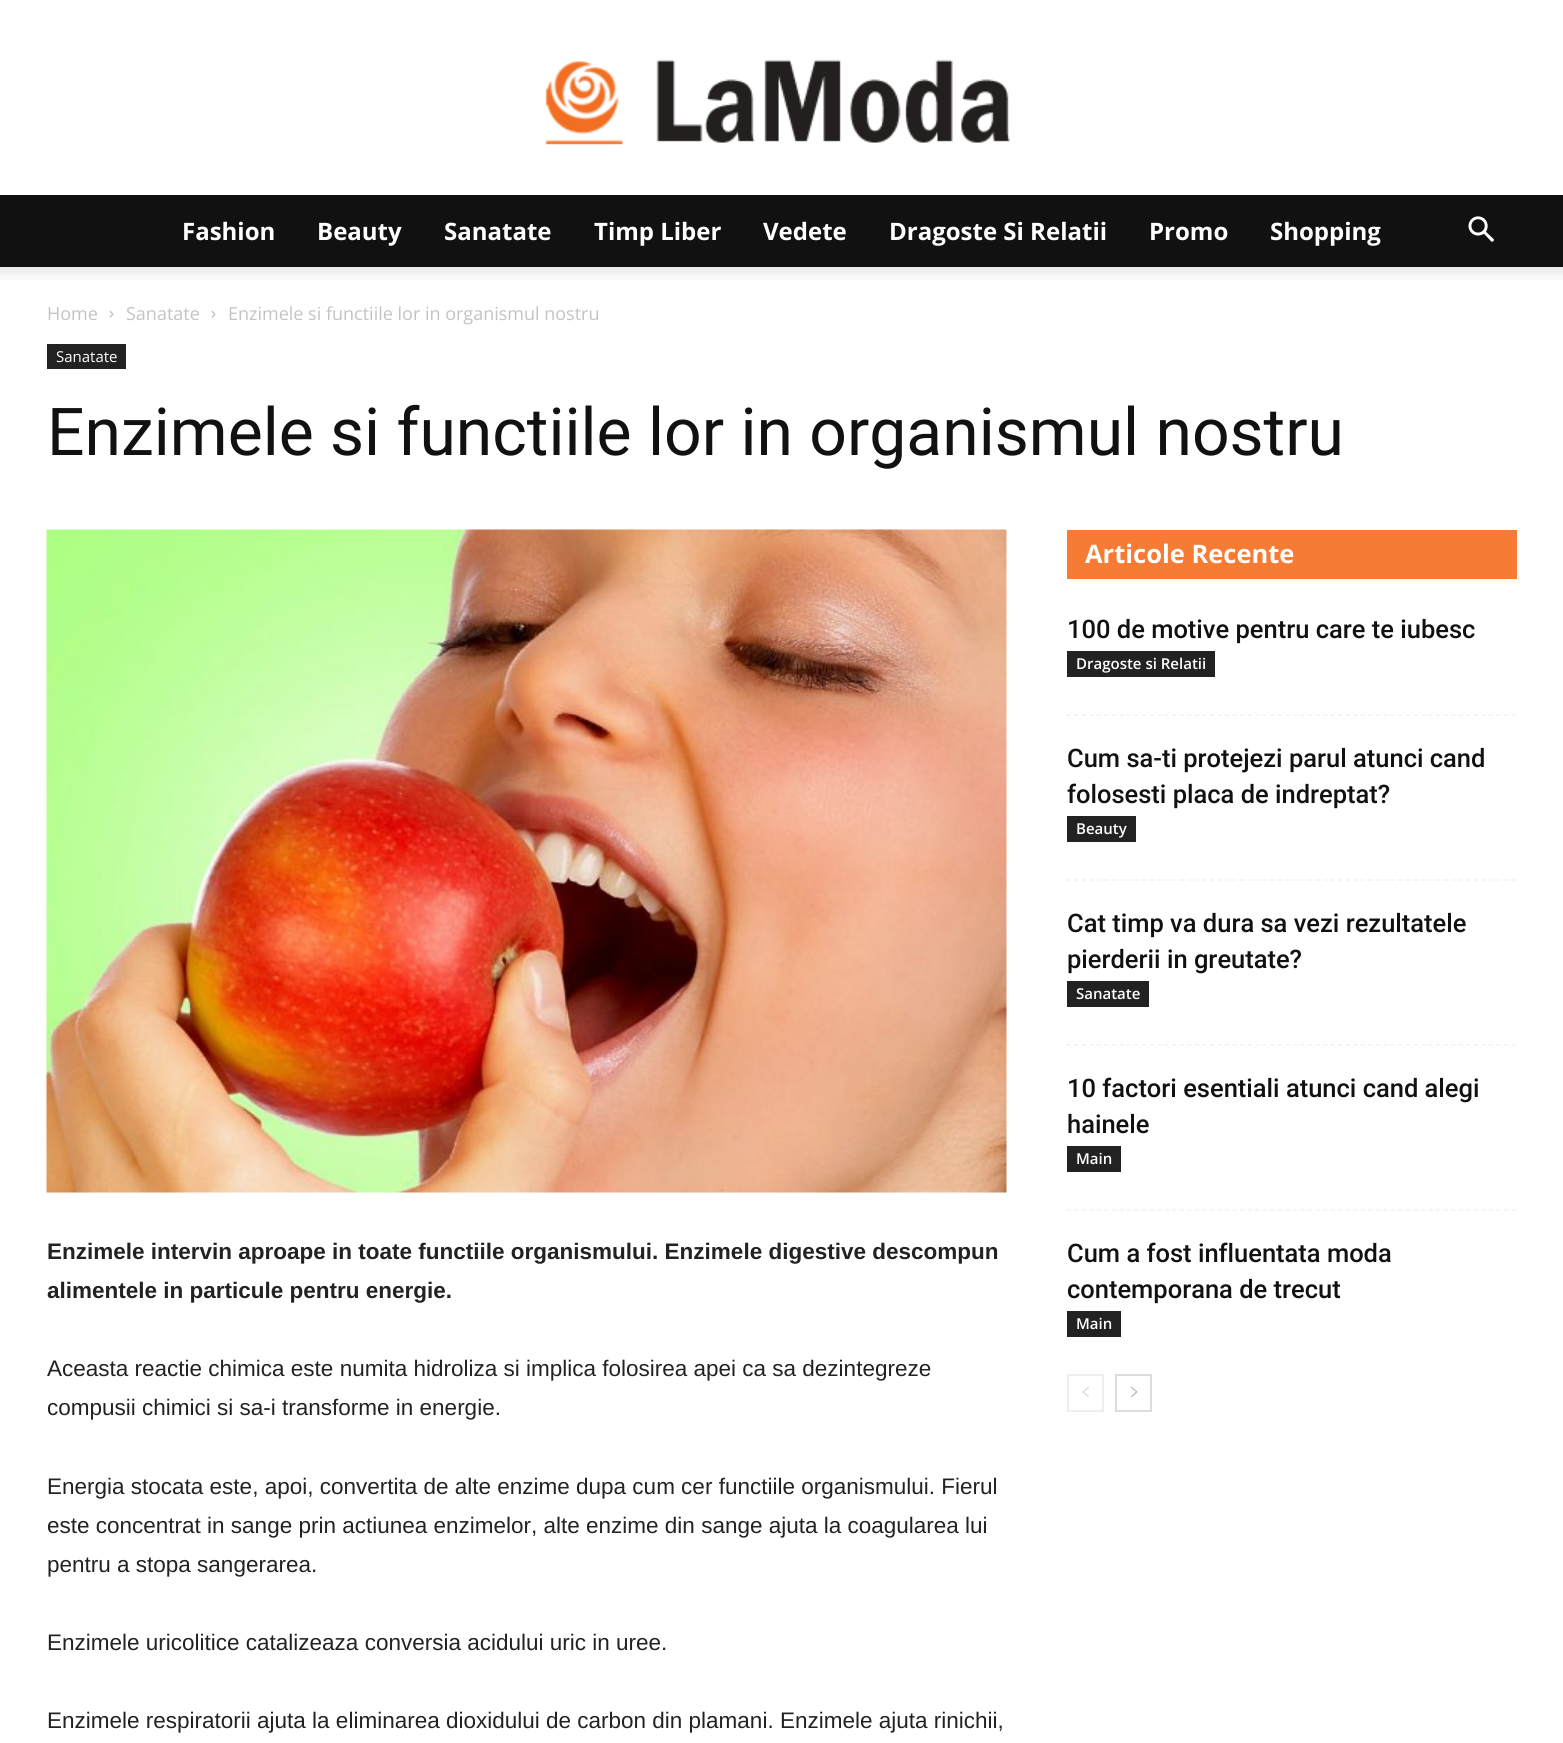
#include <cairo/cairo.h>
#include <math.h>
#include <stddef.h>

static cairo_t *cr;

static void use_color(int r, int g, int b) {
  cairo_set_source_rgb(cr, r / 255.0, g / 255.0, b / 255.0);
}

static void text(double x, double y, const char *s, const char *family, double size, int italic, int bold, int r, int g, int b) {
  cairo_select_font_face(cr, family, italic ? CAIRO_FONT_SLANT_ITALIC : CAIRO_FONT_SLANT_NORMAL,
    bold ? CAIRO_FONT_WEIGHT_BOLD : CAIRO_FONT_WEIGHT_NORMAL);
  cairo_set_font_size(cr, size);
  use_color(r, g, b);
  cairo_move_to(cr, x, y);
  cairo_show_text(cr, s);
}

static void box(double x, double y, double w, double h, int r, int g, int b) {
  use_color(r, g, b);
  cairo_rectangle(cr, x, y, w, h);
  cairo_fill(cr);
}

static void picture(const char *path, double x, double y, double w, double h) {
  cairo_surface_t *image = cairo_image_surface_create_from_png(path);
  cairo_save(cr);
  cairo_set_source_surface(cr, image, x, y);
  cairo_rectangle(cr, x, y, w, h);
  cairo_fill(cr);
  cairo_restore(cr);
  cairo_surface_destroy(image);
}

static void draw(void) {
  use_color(255, 255, 255);
  cairo_paint(cr);
  picture("img_01.png", 545, 59, 465, 86);
  box(0, 195, 1563, 72, 17, 17, 17);
  picture("img_02.png", 1468, 216, 26, 26);
  picture("img_03.png", 0, 267, 1563, 13);
  picture("img_04.png", 109, 310, 5, 8);
  picture("img_04.png", 211, 310, 5, 8);
  box(47, 344, 79, 25, 34, 34, 34);
  box(1067, 530, 450, 49, 247, 123, 51);
  cairo_new_path(cr);
  cairo_move_to(cr, 1066.5, 715);
  cairo_line_to(cr, 1516.5, 715);
  use_color(242, 242, 242);
  cairo_set_line_width(cr, 1.5);
  cairo_set_dash(cr, (double[]){4.5, 3.04}, 2, 0);
  cairo_stroke(cr);
  box(1067, 651, 148, 26, 34, 34, 34);
  cairo_new_path(cr);
  cairo_move_to(cr, 1066.5, 880);
  cairo_line_to(cr, 1516.5, 880);
  use_color(242, 242, 242);
  cairo_stroke(cr);
  box(1067, 816, 69, 26, 34, 34, 34);
  cairo_new_path(cr);
  cairo_move_to(cr, 1066.5, 1045);
  cairo_line_to(cr, 1516.5, 1045);
  use_color(242, 242, 242);
  cairo_stroke(cr);
  box(1067, 981, 82, 26, 34, 34, 34);
  cairo_new_path(cr);
  cairo_move_to(cr, 1066.5, 1210);
  cairo_line_to(cr, 1516.5, 1210);
  use_color(242, 242, 242);
  cairo_stroke(cr);
  box(1067, 1146, 54, 26, 34, 34, 34);
  box(1067, 1311, 54, 26, 34, 34, 34);
  cairo_rectangle(cr, 1068, 1375, 35, 36);
  use_color(238, 238, 238);
  cairo_set_line_width(cr, 2);
  cairo_set_dash(cr, NULL, 0, 0);
  cairo_stroke(cr);
  picture("img_05.png", 1082, 1386, 7, 11);
  cairo_rectangle(cr, 1116, 1375, 35, 36);
  use_color(220, 220, 220);
  cairo_stroke(cr);
  picture("img_06.png", 1131, 1386, 7, 12);
  picture("img_07.png", 46, 529, 961, 664);
  text(182, 240, "Fashion", "Open Sans", 24, 0, 1, 255, 255, 255);
  text(317, 240, "Beauty", "Open Sans", 24, 0, 1, 255, 255, 255);
  text(444, 240, "Sanatate", "Open Sans", 24, 0, 1, 255, 255, 255);
  text(594, 240, "Timp Liber", "Open Sans", 24, 0, 1, 255, 255, 255);
  text(763, 240, "Vedete", "Open Sans", 24, 0, 1, 255, 255, 255);
  text(889, 240, "Dragoste Si Relatii", "Open Sans", 24, 0, 1, 255, 255, 255);
  text(1149, 240, "Promo", "Open Sans", 24, 0, 1, 255, 255, 255);
  text(1270, 240, "Shopping", "Open Sans", 24, 0, 1, 255, 255, 255);
  text(47, 320, "Home", "Open Sans", 18, 0, 0, 195, 195, 195);
  text(126, 320, "Sanatate", "Open Sans", 18, 0, 0, 195, 195, 195);
  text(228, 320, "Enzimele si functiile lor in organismul nostru", "Open Sans", 18, 0, 0, 195, 195, 195);
  text(56, 362, "Sanatate", "Open Sans", 15, 0, 0, 255, 255, 255);
  text(47, 455, "Enzimele si functiile lor in organismul nostru", "Roboto", 66, 0, 0, 17, 17, 17);
  text(1085, 563, "Articole Recente", "Open Sans", 25.5, 0, 1, 255, 255, 255);
  text(1067, 638, "100 de motive pentru care te iubesc", "Roboto Medium", 25.5, 0, 0, 17, 17, 17);
  text(1076, 669, "Dragoste si Relatii", "Open Sans SemiBold", 15, 0, 0, 255, 255, 255);
  text(1067, 767, "Cum sa-ti protejezi parul atunci cand", "Roboto Medium", 25.5, 0, 0, 17, 17, 17);
  text(1067, 803, "folosesti placa de indreptat?", "Roboto Medium", 25.5, 0, 0, 17, 17, 17);
  text(1076, 834, "Beauty", "Open Sans SemiBold", 15, 0, 0, 255, 255, 255);
  text(1067, 932, "Cat timp va dura sa vezi rezultatele", "Roboto Medium", 25.5, 0, 0, 17, 17, 17);
  text(1067, 968, "pierderii in greutate?", "Roboto Medium", 25.5, 0, 0, 17, 17, 17);
  text(1076, 999, "Sanatate", "Open Sans SemiBold", 15, 0, 0, 255, 255, 255);
  text(1067, 1097, "10 factori esentiali atunci cand alegi", "Roboto Medium", 25.5, 0, 0, 17, 17, 17);
  text(1067, 1133, "hainele", "Roboto Medium", 25.5, 0, 0, 17, 17, 17);
  text(1076, 1164, "Main", "Open Sans SemiBold", 15, 0, 0, 255, 255, 255);
  text(1067, 1262, "Cum a fost influentata moda", "Roboto Medium", 25.5, 0, 0, 17, 17, 17);
  text(1067, 1298, "contemporana de trecut", "Roboto Medium", 25.5, 0, 0, 17, 17, 17);
  text(1076, 1329, "Main", "Open Sans SemiBold", 15, 0, 0, 255, 255, 255);
  text(47, 1259, "Enzimele intervin aproape in toate functiile organismului. Enzimele digestive descompun", "Liberation Sans", 22.5, 0, 1, 34, 34, 34);
  text(47, 1298, "alimentele in particule pentru energie.", "Liberation Sans", 22.5, 0, 1, 34, 34, 34);
  text(47, 1376, "Aceasta reactie chimica este numita hidroliza si implica folosirea apei ca sa dezintegreze", "Liberation Sans", 22.5, 0, 0, 34, 34, 34);
  text(47, 1415, "compusii chimici si sa-i transforme in energie.", "Liberation Sans", 22.5, 0, 0, 34, 34, 34);
  text(47, 1494, "Energia stocata este, apoi, convertita de alte enzime dupa cum cer functiile organismului. Fierul", "Liberation Sans", 22.5, 0, 0, 34, 34, 34);
  text(47, 1533, "este concentrat in sange prin actiunea enzimelor, alte enzime din sange ajuta la coagularea lui", "Liberation Sans", 22.5, 0, 0, 34, 34, 34);
  text(47, 1572, "pentru a stopa sangerarea.", "Liberation Sans", 22.5, 0, 0, 34, 34, 34);
  text(47, 1650, "Enzimele uricolitice catalizeaza conversia acidului uric in uree.", "Liberation Sans", 22.5, 0, 0, 34, 34, 34);
  text(47, 1728, "Enzimele respiratorii ajuta la eliminarea dioxidului de carbon din plamani. Enzimele ajuta rinichii,", "Liberation Sans", 22.5, 0, 0, 34, 34, 34);
}

int main(void) {
  cairo_surface_t *surface = cairo_image_surface_create(CAIRO_FORMAT_RGB24, 1563, 1743);
  cr = cairo_create(surface);
  cairo_font_options_t *options = cairo_font_options_create();
  cairo_font_options_set_hint_metrics(options, CAIRO_HINT_METRICS_OFF);
  cairo_font_options_set_hint_style(options, CAIRO_HINT_STYLE_NONE);
  cairo_set_font_options(cr, options);
  cairo_set_miter_limit(cr, 4);
  draw();
  cairo_surface_write_to_png(surface, "out.png");
  cairo_font_options_destroy(options);
  cairo_destroy(cr);
  cairo_surface_destroy(surface);
  return 0;
}
